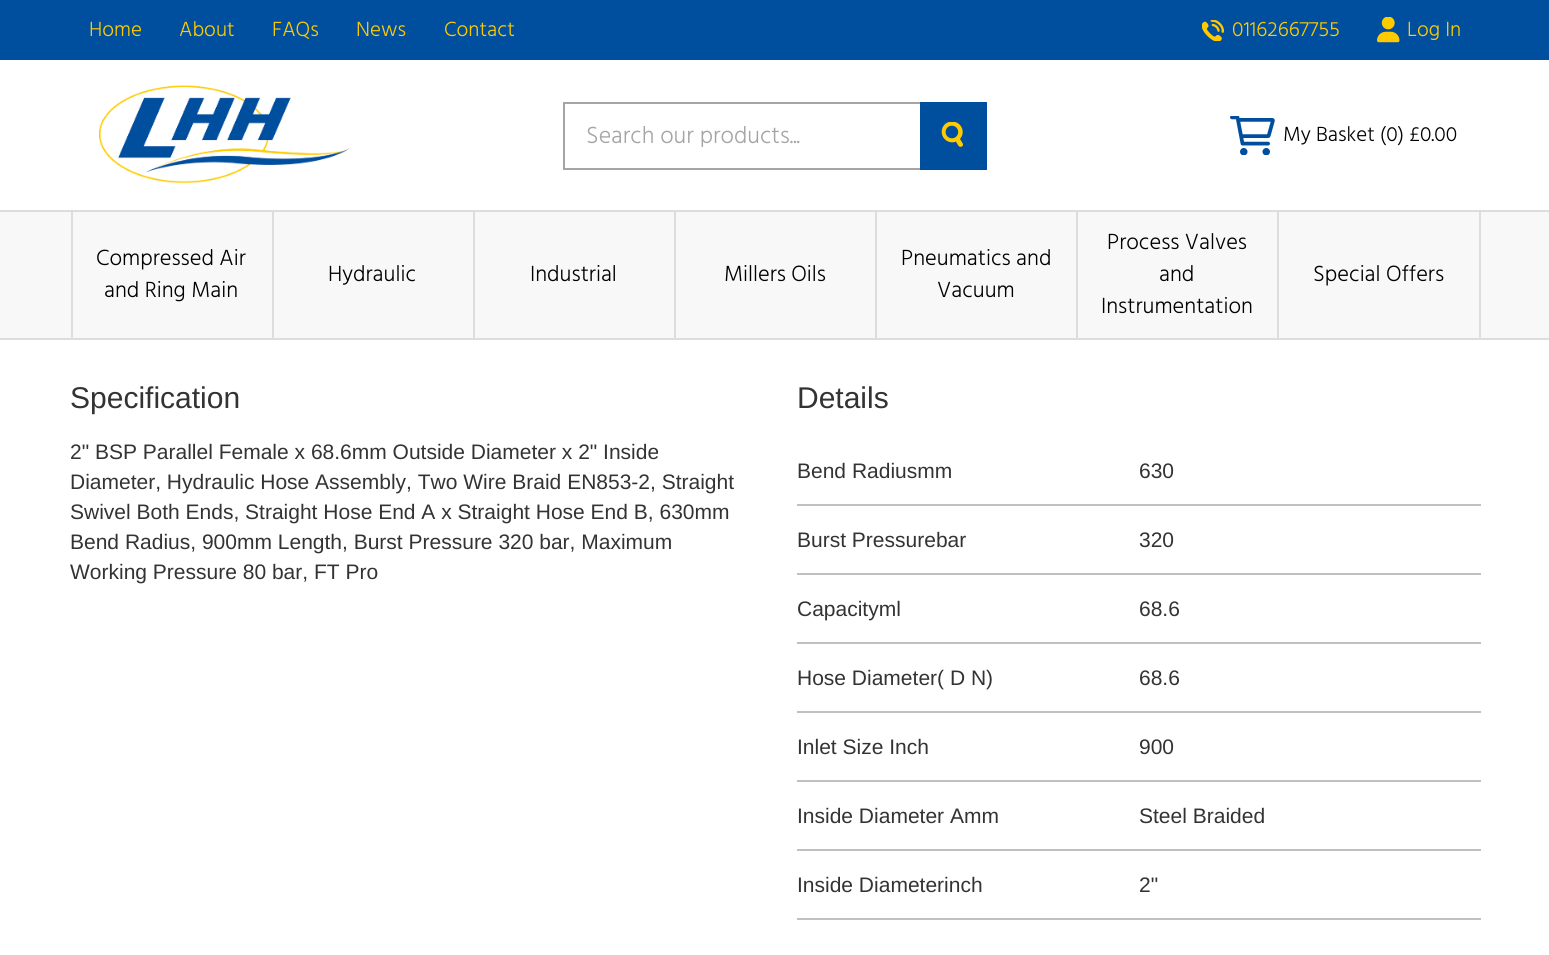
#include <cairo/cairo.h>
#include <math.h>
#include <stddef.h>

static cairo_t *cr;

static void use_color(int r, int g, int b) {
  cairo_set_source_rgb(cr, r / 255.0, g / 255.0, b / 255.0);
}

static void text(double x, double y, const char *s, const char *family, double size, int italic, int bold, int r, int g, int b) {
  cairo_select_font_face(cr, family, italic ? CAIRO_FONT_SLANT_ITALIC : CAIRO_FONT_SLANT_NORMAL,
    bold ? CAIRO_FONT_WEIGHT_BOLD : CAIRO_FONT_WEIGHT_NORMAL);
  cairo_set_font_size(cr, size);
  use_color(r, g, b);
  cairo_move_to(cr, x, y);
  cairo_show_text(cr, s);
}

static void box(double x, double y, double w, double h, int r, int g, int b) {
  use_color(r, g, b);
  cairo_rectangle(cr, x, y, w, h);
  cairo_fill(cr);
}

static void picture(const char *path, double x, double y, double w, double h) {
  cairo_surface_t *image = cairo_image_surface_create_from_png(path);
  cairo_save(cr);
  cairo_set_source_surface(cr, image, x, y);
  cairo_rectangle(cr, x, y, w, h);
  cairo_fill(cr);
  cairo_restore(cr);
  cairo_surface_destroy(image);
}

static void draw(void) {
  use_color(255, 255, 255);
  cairo_paint(cr);
  box(0, 0, 1549, 60, 0, 79, 159);
  picture("img_01.png", 1202, 20, 22, 21);
  picture("img_02.png", 1377, 17, 23, 26);
  picture("img_03.png", 99, 85, 251, 99);
  cairo_rectangle(cr, 564, 103, 422, 66);
  use_color(165, 165, 165);
  cairo_stroke(cr);
  box(920, 102, 67, 68, 0, 79, 159);
  picture("img_04.png", 941, 122, 22, 25);
  picture("img_05.png", 1230, 116, 45, 39);
  box(0, 212, 1549, 126, 248, 248, 248);
  box(0, 210, 1549, 2, 221, 221, 221);
  box(0, 338, 1549, 2, 221, 221, 221);
  box(1479, 212, 2, 126, 221, 221, 221);
  box(71, 212, 2, 126, 221, 221, 221);
  box(272, 212, 2, 126, 221, 221, 221);
  box(473, 212, 2, 126, 221, 221, 221);
  box(674, 212, 2, 126, 221, 221, 221);
  box(875, 212, 2, 126, 221, 221, 221);
  box(1076, 212, 2, 126, 221, 221, 221);
  box(1277, 212, 2, 126, 221, 221, 221);
  box(797, 504, 684, 2, 193, 192, 192);
  box(797, 573, 684, 2, 193, 192, 192);
  box(797, 642, 684, 2, 193, 192, 192);
  box(797, 711, 684, 2, 193, 192, 192);
  box(797, 780, 684, 2, 193, 192, 192);
  box(797, 849, 684, 2, 193, 192, 192);
  box(797, 918, 684, 2, 193, 192, 192);
  text(89, 36, "Home", "Hind Light", 21, 0, 0, 255, 203, 0);
  text(179, 36, "About", "Hind Light", 21, 0, 0, 255, 203, 0);
  text(272, 36, "FAQs", "Hind Light", 21, 0, 0, 255, 203, 0);
  text(356, 36, "News", "Hind Light", 21, 0, 0, 255, 203, 0);
  text(444, 36, "Contact", "Hind Light", 21, 0, 0, 255, 203, 0);
  text(1232, 36, "01162667755", "Hind Light", 21, 0, 0, 255, 203, 0);
  text(1407, 36, "Log In", "Hind Light", 21, 0, 0, 255, 203, 0);
  cairo_save(cr);
  cairo_rectangle(cr, 587, 123, 376, 24);
  cairo_clip(cr);
  text(586, 143, "Search our products...", "Hind Light", 24, 0, 0, 165, 165, 165);
  cairo_restore(cr);
  text(1283, 141, "My Basket (0) £0.00", "Hind Light", 21, 0, 0, 0, 0, 0);
  text(96, 265, "Compressed Air", "Hind Light", 22.5, 0, 0, 0, 0, 0);
  text(104, 297, "and Ring Main", "Hind Light", 22.5, 0, 0, 0, 0, 0);
  text(328, 281, "Hydraulic", "Hind Light", 22.5, 0, 0, 0, 0, 0);
  text(530, 281, "Industrial", "Hind Light", 22.5, 0, 0, 0, 0, 0);
  text(724, 281, "Millers Oils", "Hind Light", 22.5, 0, 0, 0, 0, 0);
  text(901, 265, "Pneumatics and", "Hind Light", 22.5, 0, 0, 0, 0, 0);
  text(937, 297, "Vacuum", "Hind Light", 22.5, 0, 0, 0, 0, 0);
  text(1107, 249, "Process Valves", "Hind Light", 22.5, 0, 0, 0, 0, 0);
  text(1159, 281, "and", "Hind Light", 22.5, 0, 0, 0, 0, 0);
  text(1101, 313, "Instrumentation", "Hind Light", 22.5, 0, 0, 0, 0, 0);
  text(1313, 281, "Special Offers", "Hind Light", 22.5, 0, 0, 0, 0, 0);
  text(70, 408, "Specification", "Liberation Sans", 30, 0, 0, 51, 51, 51);
  text(70, 459, "2\" BSP Parallel Female x 68.6mm Outside Diameter x 2\" Inside", "Liberation Sans", 21, 0, 0, 51, 51, 51);
  text(70, 489, "Diameter, Hydraulic Hose Assembly, Two Wire Braid EN853-2, Straight", "Liberation Sans", 21, 0, 0, 51, 51, 51);
  text(70, 519, "Swivel Both Ends, Straight Hose End A x Straight Hose End B, 630mm", "Liberation Sans", 21, 0, 0, 51, 51, 51);
  text(70, 549, "Bend Radius, 900mm Length, Burst Pressure 320 bar, Maximum", "Liberation Sans", 21, 0, 0, 51, 51, 51);
  text(70, 579, "Working Pressure 80 bar, FT Pro", "Liberation Sans", 21, 0, 0, 51, 51, 51);
  text(797, 408, "Details", "Liberation Sans", 30, 0, 0, 51, 51, 51);
  text(797, 478, "Bend Radiusmm", "Liberation Sans", 21, 0, 0, 51, 51, 51);
  text(1139, 478, "630", "Liberation Sans", 21, 0, 0, 51, 51, 51);
  text(797, 547, "Burst Pressurebar", "Liberation Sans", 21, 0, 0, 51, 51, 51);
  text(1139, 547, "320", "Liberation Sans", 21, 0, 0, 51, 51, 51);
  text(797, 616, "Capacityml", "Liberation Sans", 21, 0, 0, 51, 51, 51);
  text(1139, 616, "68.6", "Liberation Sans", 21, 0, 0, 51, 51, 51);
  text(797, 685, "Hose Diameter( D N)", "Liberation Sans", 21, 0, 0, 51, 51, 51);
  text(1139, 685, "68.6", "Liberation Sans", 21, 0, 0, 51, 51, 51);
  text(797, 754, "Inlet Size Inch", "Liberation Sans", 21, 0, 0, 51, 51, 51);
  text(1139, 754, "900", "Liberation Sans", 21, 0, 0, 51, 51, 51);
  text(797, 823, "Inside Diameter Amm", "Liberation Sans", 21, 0, 0, 51, 51, 51);
  text(1139, 823, "Steel Braided", "Liberation Sans", 21, 0, 0, 51, 51, 51);
  text(797, 892, "Inside Diameterinch", "Liberation Sans", 21, 0, 0, 51, 51, 51);
  text(1139, 892, "2\"", "Liberation Sans", 21, 0, 0, 51, 51, 51);
}

int main(void) {
  cairo_surface_t *surface = cairo_image_surface_create(CAIRO_FORMAT_RGB24, 1549, 955);
  cr = cairo_create(surface);
  cairo_font_options_t *options = cairo_font_options_create();
  cairo_font_options_set_hint_metrics(options, CAIRO_HINT_METRICS_OFF);
  cairo_font_options_set_hint_style(options, CAIRO_HINT_STYLE_NONE);
  cairo_set_font_options(cr, options);
  cairo_set_miter_limit(cr, 4);
  draw();
  cairo_surface_write_to_png(surface, "out.png");
  cairo_font_options_destroy(options);
  cairo_destroy(cr);
  cairo_surface_destroy(surface);
  return 0;
}
